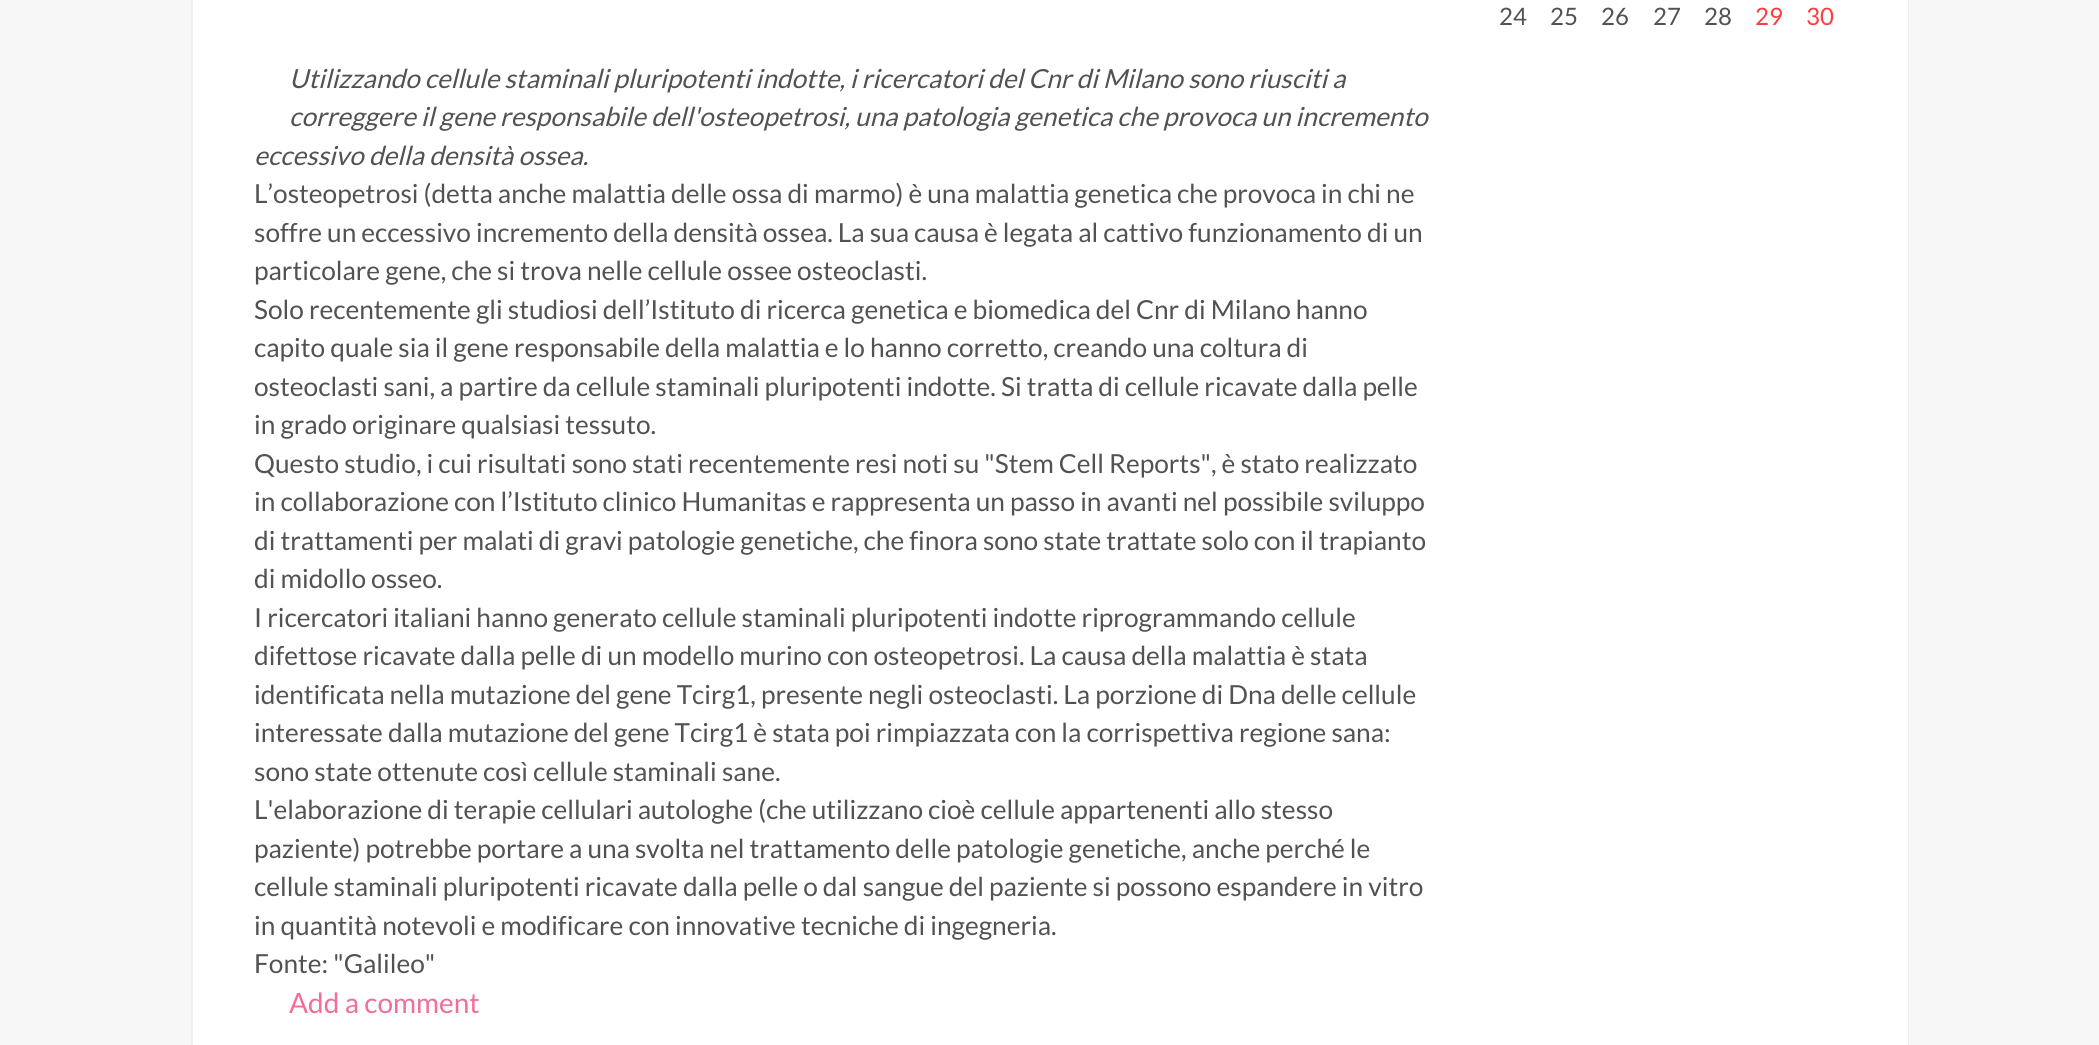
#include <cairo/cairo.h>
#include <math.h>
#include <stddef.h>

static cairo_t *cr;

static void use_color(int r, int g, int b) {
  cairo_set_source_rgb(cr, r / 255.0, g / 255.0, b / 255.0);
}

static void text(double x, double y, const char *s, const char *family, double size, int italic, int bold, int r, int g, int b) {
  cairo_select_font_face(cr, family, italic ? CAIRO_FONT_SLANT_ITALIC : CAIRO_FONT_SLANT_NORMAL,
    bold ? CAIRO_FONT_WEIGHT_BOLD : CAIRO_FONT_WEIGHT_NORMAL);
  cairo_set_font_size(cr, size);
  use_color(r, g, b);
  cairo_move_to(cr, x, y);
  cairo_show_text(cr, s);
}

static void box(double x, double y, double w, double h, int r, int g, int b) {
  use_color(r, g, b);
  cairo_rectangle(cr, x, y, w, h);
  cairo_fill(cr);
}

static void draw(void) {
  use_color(247, 247, 247);
  cairo_paint(cr);
  cairo_rectangle(cr, 192, -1, 1716, 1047);
  use_color(239, 239, 239);
  cairo_stroke(cr);
  box(193, 0, 1715, 1045, 255, 255, 255);
  text(1499, 25, "24", "Lato", 24, 0, 0, 82, 82, 82);
  text(1550, 25, "25", "Lato", 24, 0, 0, 82, 82, 82);
  text(1601, 25, "26", "Lato", 24, 0, 0, 82, 82, 82);
  text(1653, 25, "27", "Lato", 24, 0, 0, 82, 82, 82);
  text(1704, 25, "28", "Lato", 24, 0, 0, 82, 82, 82);
  text(1755, 25, "29", "Lato", 24, 0, 0, 255, 61, 61);
  text(1806, 25, "30", "Lato", 24, 0, 0, 255, 61, 61);
  text(289, 88, "Utilizzando cellule staminali pluripotenti indotte, i ricercatori del Cnr di Milano sono riusciti a", "Lato", 26.25, 1, 0, 82, 82, 82);
  text(289, 126, "correggere il gene responsabile dell'osteopetrosi, una patologia genetica che provoca un incremento", "Lato", 26.25, 1, 0, 82, 82, 82);
  text(254, 165, "eccessivo della densità ossea.", "Lato", 26.25, 1, 0, 82, 82, 82);
  text(254, 203, "L’osteopetrosi (detta anche malattia delle ossa di marmo) è una malattia genetica che provoca in chi ne", "Lato", 26.25, 0, 0, 82, 82, 82);
  text(254, 242, "soffre un eccessivo incremento della densità ossea. La sua causa è legata al cattivo funzionamento di un", "Lato", 26.25, 0, 0, 82, 82, 82);
  text(254, 280, "particolare gene, che si trova nelle cellule ossee osteoclasti.", "Lato", 26.25, 0, 0, 82, 82, 82);
  text(254, 319, "Solo recentemente gli studiosi dell’Istituto di ricerca genetica e biomedica del Cnr di Milano hanno", "Lato", 26.25, 0, 0, 82, 82, 82);
  text(254, 357, "capito quale sia il gene responsabile della malattia e lo hanno corretto, creando una coltura di", "Lato", 26.25, 0, 0, 82, 82, 82);
  text(254, 396, "osteoclasti sani, a partire da cellule staminali pluripotenti indotte. Si tratta di cellule ricavate dalla pelle", "Lato", 26.25, 0, 0, 82, 82, 82);
  text(254, 434, "in grado originare qualsiasi tessuto.", "Lato", 26.25, 0, 0, 82, 82, 82);
  text(254, 473, "Questo studio, i cui risultati sono stati recentemente resi noti su \"Stem Cell Reports\", è stato realizzato", "Lato", 26.25, 0, 0, 82, 82, 82);
  text(254, 511, "in collaborazione con l’Istituto clinico Humanitas e rappresenta un passo in avanti nel possibile sviluppo", "Lato", 26.25, 0, 0, 82, 82, 82);
  text(254, 550, "di trattamenti per malati di gravi patologie genetiche, che finora sono state trattate solo con il trapianto", "Lato", 26.25, 0, 0, 82, 82, 82);
  text(254, 588, "di midollo osseo.", "Lato", 26.25, 0, 0, 82, 82, 82);
  text(254, 627, "I ricercatori italiani hanno generato cellule staminali pluripotenti indotte riprogrammando cellule", "Lato", 26.25, 0, 0, 82, 82, 82);
  text(254, 665, "difettose ricavate dalla pelle di un modello murino con osteopetrosi. La causa della malattia è stata", "Lato", 26.25, 0, 0, 82, 82, 82);
  text(254, 704, "identificata nella mutazione del gene Tcirg1, presente negli osteoclasti. La porzione di Dna delle cellule", "Lato", 26.25, 0, 0, 82, 82, 82);
  text(254, 742, "interessate dalla mutazione del gene Tcirg1 è stata poi rimpiazzata con la corrispettiva regione sana:", "Lato", 26.25, 0, 0, 82, 82, 82);
  text(254, 781, "sono state ottenute così cellule staminali sane.", "Lato", 26.25, 0, 0, 82, 82, 82);
  text(254, 819, "L'elaborazione di terapie cellulari autologhe (che utilizzano cioè cellule appartenenti allo stesso", "Lato", 26.25, 0, 0, 82, 82, 82);
  text(254, 858, "paziente) potrebbe portare a una svolta nel trattamento delle patologie genetiche, anche perché le", "Lato", 26.25, 0, 0, 82, 82, 82);
  text(254, 896, "cellule staminali pluripotenti ricavate dalla pelle o dal sangue del paziente si possono espandere in vitro", "Lato", 26.25, 0, 0, 82, 82, 82);
  text(254, 935, "in quantità notevoli e modificare con innovative tecniche di ingegneria.", "Lato", 26.25, 0, 0, 82, 82, 82);
  text(254, 973, "Fonte: \"Galileo\"", "Lato", 26.25, 0, 0, 82, 82, 82);
  text(289, 1013, "Add a comment", "Lato", 28, 0, 0, 241, 109, 154);
}

int main(void) {
  cairo_surface_t *surface = cairo_image_surface_create(CAIRO_FORMAT_RGB24, 2099, 1045);
  cr = cairo_create(surface);
  cairo_font_options_t *options = cairo_font_options_create();
  cairo_font_options_set_hint_metrics(options, CAIRO_HINT_METRICS_OFF);
  cairo_font_options_set_hint_style(options, CAIRO_HINT_STYLE_NONE);
  cairo_set_font_options(cr, options);
  cairo_set_miter_limit(cr, 4);
  draw();
  cairo_surface_write_to_png(surface, "out.png");
  cairo_font_options_destroy(options);
  cairo_destroy(cr);
  cairo_surface_destroy(surface);
  return 0;
}
